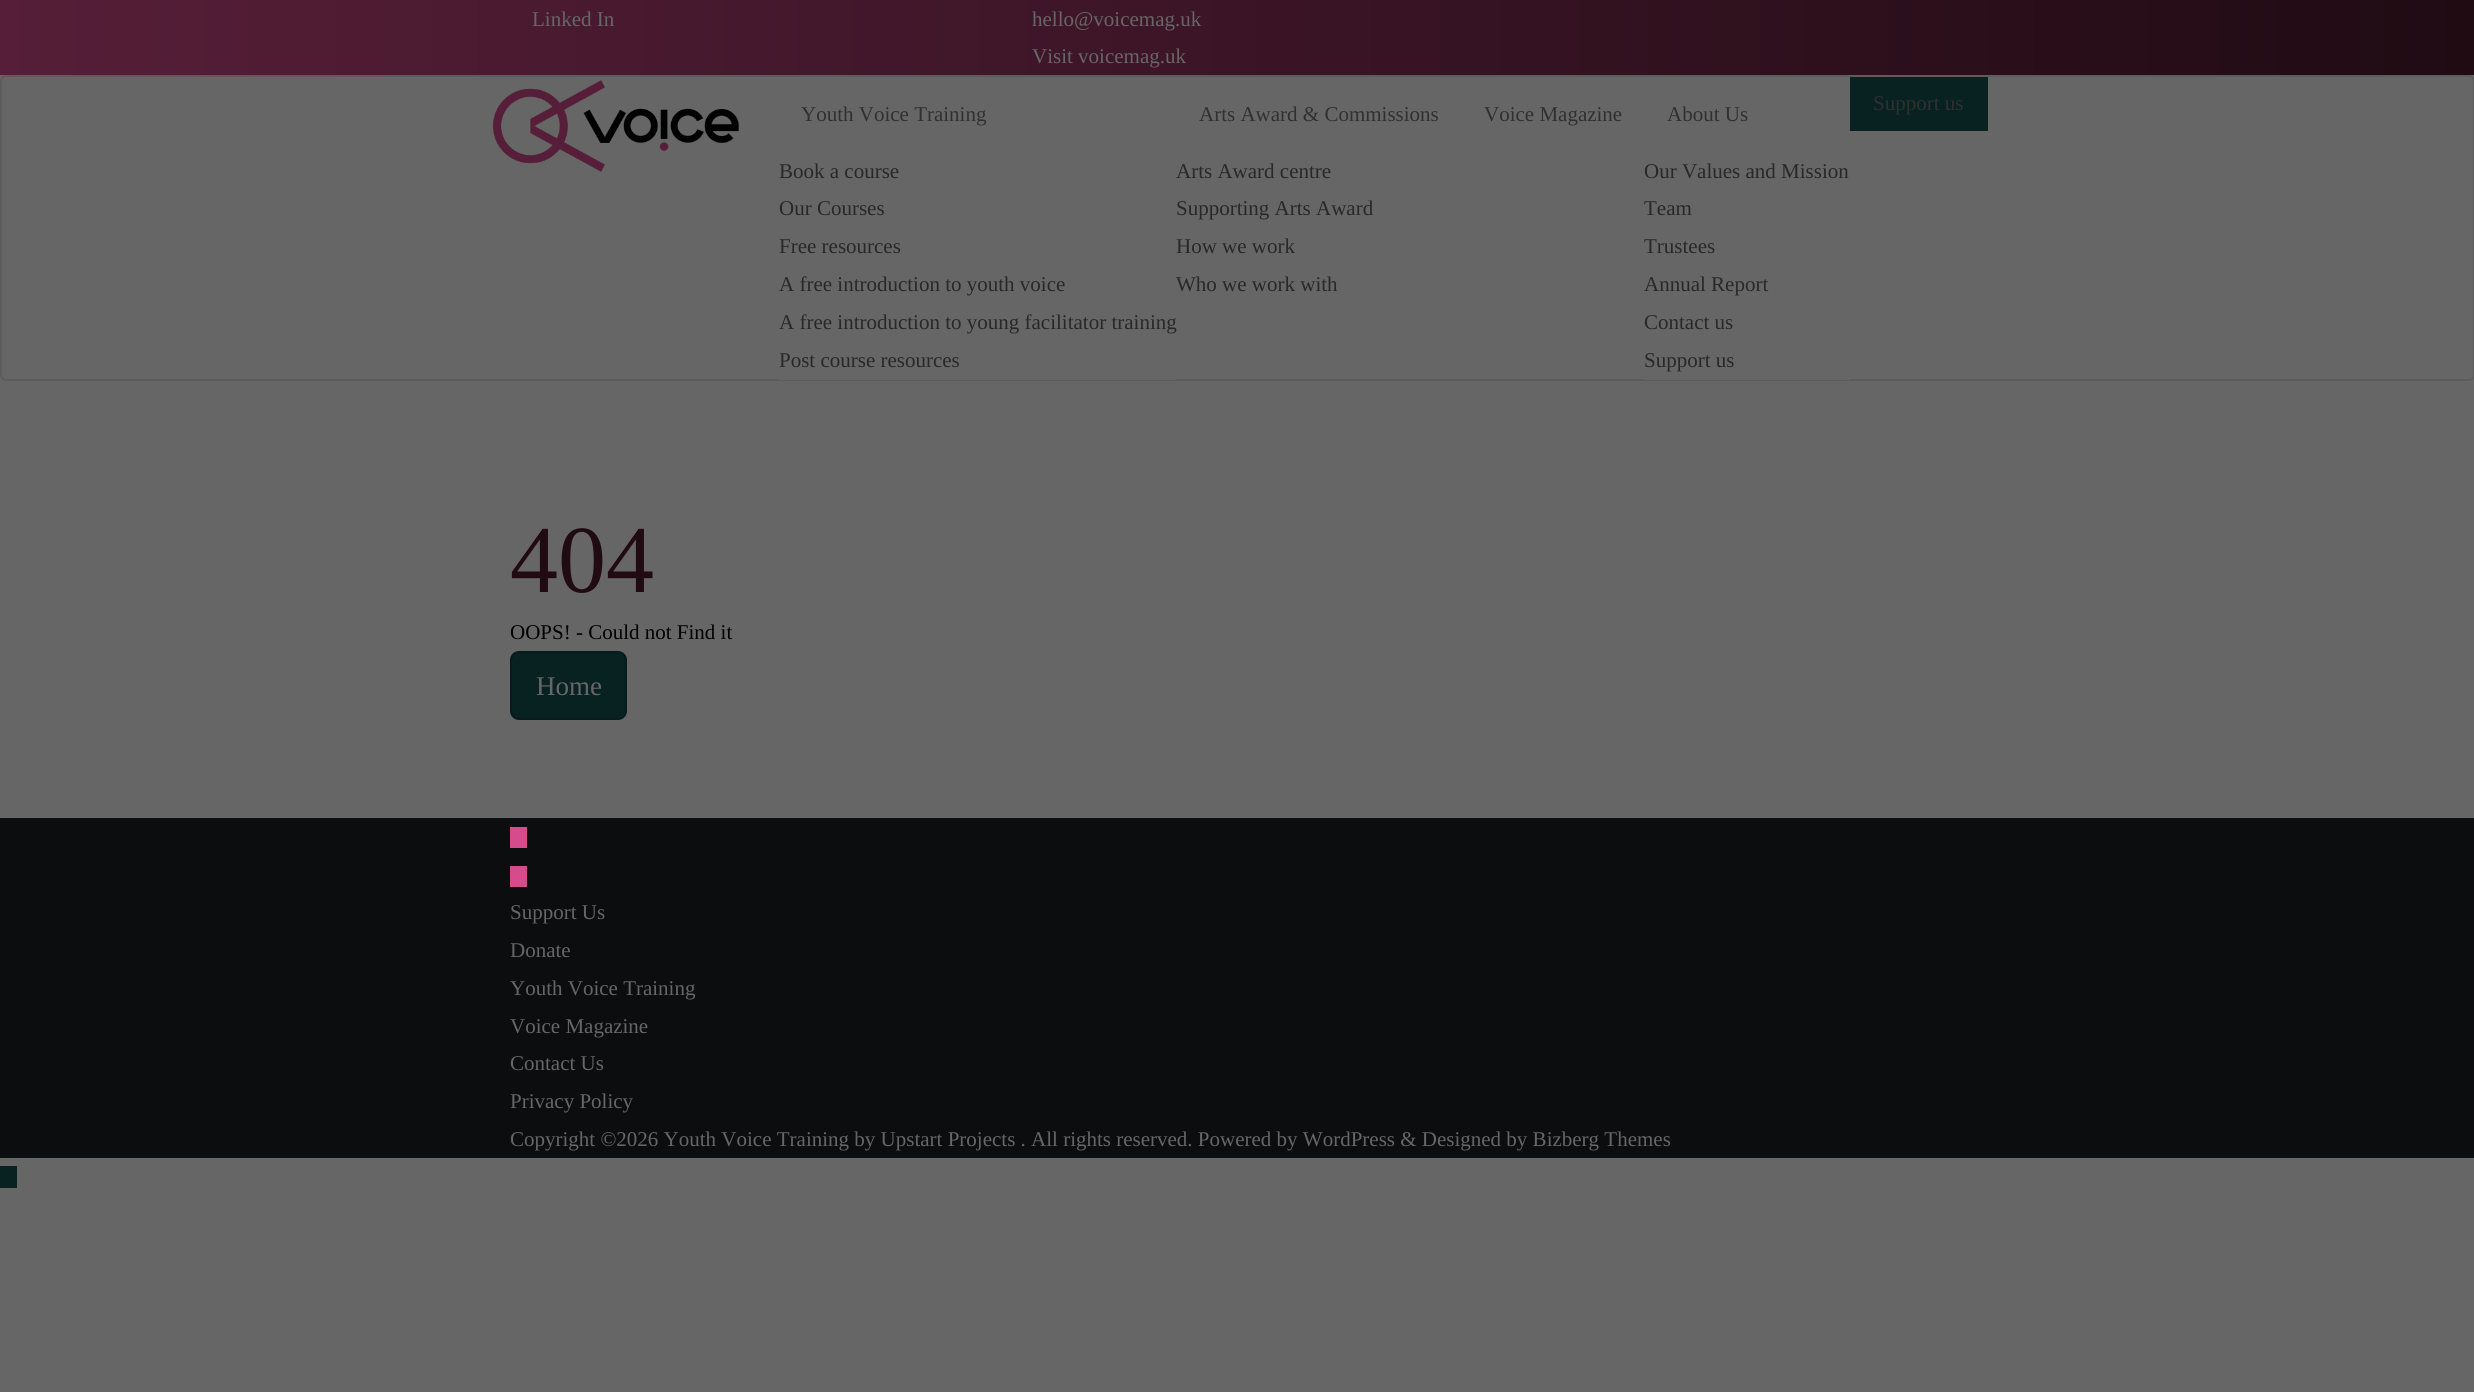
#include <cairo/cairo.h>
#include <math.h>
#include <stddef.h>

static cairo_t *cr;

static void use_color(int r, int g, int b) {
  cairo_set_source_rgb(cr, r / 255.0, g / 255.0, b / 255.0);
}

static void text(double x, double y, const char *s, const char *family, double size, int italic, int bold, int r, int g, int b) {
  cairo_select_font_face(cr, family, italic ? CAIRO_FONT_SLANT_ITALIC : CAIRO_FONT_SLANT_NORMAL,
    bold ? CAIRO_FONT_WEIGHT_BOLD : CAIRO_FONT_WEIGHT_NORMAL);
  cairo_set_font_size(cr, size);
  use_color(r, g, b);
  cairo_move_to(cr, x, y);
  cairo_show_text(cr, s);
}

static void box(double x, double y, double w, double h, int r, int g, int b) {
  use_color(r, g, b);
  cairo_rectangle(cr, x, y, w, h);
  cairo_fill(cr);
}

static void round_rect(double x, double y, double w, double h, double r) {
  cairo_new_sub_path(cr);
  cairo_arc(cr, x + w - r, y + h - r, r, 0, M_PI / 2);
  cairo_arc(cr, x + r, y + h - r, r, M_PI / 2, M_PI);
  cairo_arc(cr, x + r, y + r, r, M_PI, 1.5 * M_PI);
  cairo_arc(cr, x + w - r, y + r, r, 1.5 * M_PI, 2 * M_PI);
  cairo_close_path(cr);
}

static void picture(const char *path, double x, double y, double w, double h) {
  cairo_surface_t *image = cairo_image_surface_create_from_png(path);
  cairo_save(cr);
  cairo_set_source_surface(cr, image, x, y);
  cairo_rectangle(cr, x, y, w, h);
  cairo_fill(cr);
  cairo_restore(cr);
  cairo_surface_destroy(image);
}

static void draw(void) {
  cairo_pattern_t *gradient;
  use_color(102, 102, 102);
  cairo_paint(cr);
  gradient = cairo_pattern_create_linear(0, 38, 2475, 37);
  cairo_pattern_add_color_stop_rgba(gradient, 0, 0.337, 0.118, 0.22, 1);
  cairo_pattern_add_color_stop_rgba(gradient, 1, 0.125, 0.043, 0.075, 1);
  cairo_set_source(cr, gradient);
  cairo_pattern_destroy(gradient);
  cairo_rectangle(cr, 0, 0, 2474, 75);
  cairo_fill(cr);
  round_rect(1, 76, 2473, 304, 5);
  use_color(92, 92, 92);
  cairo_stroke(cr);
  picture("img_01.png", 492, 80, 247, 92);
  box(779, 379, 397, 1, 102, 102, 102);
  box(1644, 379, 206, 1, 102, 102, 102);
  box(1850, 77, 138, 54, 7, 34, 33);
  round_rect(511, 652, 115, 67, 8);
  cairo_fill_preserve(cr);
  use_color(6, 27, 27);
  cairo_stroke(cr);
  box(0, 818, 2474, 340, 12, 13, 14);
  box(510, 827, 17, 21, 214, 75, 139);
  box(510, 866, 17, 21, 214, 75, 139);
  box(0, 1166, 17, 22, 7, 34, 33);
  text(532, 26, "Linked In", "Liberation Serif", 21, 0, 0, 102, 102, 102);
  text(1032, 26, "hello@voicemag.uk", "Liberation Serif", 21, 0, 0, 102, 102, 102);
  text(1032, 63, "Visit voicemag.uk", "Liberation Serif", 21, 0, 0, 102, 102, 102);
  text(801, 121, "Youth Voice Training", "Liberation Serif", 21, 0, 0, 48, 48, 48);
  text(779, 178, "Book a course", "Liberation Serif", 21, 0, 0, 40, 40, 40);
  text(779, 215, "Our Courses", "Liberation Serif", 21, 0, 0, 40, 40, 40);
  text(779, 253, "Free resources", "Liberation Serif", 21, 0, 0, 40, 40, 40);
  text(779, 291, "A free introduction to youth voice", "Liberation Serif", 21, 0, 0, 40, 40, 40);
  text(779, 329, "A free introduction to young facilitator training", "Liberation Serif", 21, 0, 0, 40, 40, 40);
  text(779, 367, "Post course resources", "Liberation Serif", 21, 0, 0, 40, 40, 40);
  text(1199, 121, "Arts Award & Commissions", "Liberation Serif", 21, 0, 0, 48, 48, 48);
  text(1176, 178, "Arts Award centre", "Liberation Serif", 21, 0, 0, 40, 40, 40);
  text(1176, 215, "Supporting Arts Award", "Liberation Serif", 21, 0, 0, 40, 40, 40);
  text(1176, 253, "How we work", "Liberation Serif", 21, 0, 0, 40, 40, 40);
  text(1176, 291, "Who we work with", "Liberation Serif", 21, 0, 0, 40, 40, 40);
  text(1484, 121, "Voice Magazine", "Liberation Serif", 21, 0, 0, 48, 48, 48);
  text(1667, 121, "About Us", "Liberation Serif", 21, 0, 0, 48, 48, 48);
  text(1644, 178, "Our Values and Mission", "Liberation Serif", 21, 0, 0, 40, 40, 40);
  text(1644, 215, "Team", "Liberation Serif", 21, 0, 0, 40, 40, 40);
  text(1644, 253, "Trustees", "Liberation Serif", 21, 0, 0, 40, 40, 40);
  text(1644, 291, "Annual Report", "Liberation Serif", 21, 0, 0, 40, 40, 40);
  text(1644, 329, "Contact us", "Liberation Serif", 21, 0, 0, 40, 40, 40);
  text(1644, 367, "Support us", "Liberation Serif", 21, 0, 0, 40, 40, 40);
  text(1873, 110, "Support us", "Liberation Serif", 21, 0, 0, 48, 48, 48);
  text(510, 592, "404", "Liberation Serif", 96, 0, 0, 32, 11, 19);
  text(510, 639, "OOPS! - Could not Find it", "Liberation Serif", 21, 0, 0, 0, 0, 0);
  text(536, 695, "Home", "Liberation Serif", 27, 0, 0, 102, 102, 102);
  text(510, 919, "Support Us", "Liberation Serif", 21, 0, 0, 102, 102, 102);
  text(510, 957, "Donate", "Liberation Serif", 21, 0, 0, 102, 102, 102);
  text(510, 995, "Youth Voice Training", "Liberation Serif", 21, 0, 0, 102, 102, 102);
  text(510, 1033, "Voice Magazine", "Liberation Serif", 21, 0, 0, 102, 102, 102);
  text(510, 1070, "Contact Us", "Liberation Serif", 21, 0, 0, 102, 102, 102);
  text(510, 1108, "Privacy Policy", "Liberation Serif", 21, 0, 0, 102, 102, 102);
  text(510, 1146, "Copyright ©2026 Youth Voice Training by Upstart Projects . All rights reserved. Powered by WordPress & Designed by Bizberg Themes", "Liberation Serif", 21, 0, 0, 102, 102, 102);
}

int main(void) {
  cairo_surface_t *surface = cairo_image_surface_create(CAIRO_FORMAT_RGB24, 2474, 1392);
  cr = cairo_create(surface);
  cairo_font_options_t *options = cairo_font_options_create();
  cairo_font_options_set_hint_metrics(options, CAIRO_HINT_METRICS_OFF);
  cairo_font_options_set_hint_style(options, CAIRO_HINT_STYLE_NONE);
  cairo_set_font_options(cr, options);
  cairo_set_miter_limit(cr, 4);
  draw();
  cairo_surface_write_to_png(surface, "out.png");
  cairo_font_options_destroy(options);
  cairo_destroy(cr);
  cairo_surface_destroy(surface);
  return 0;
}
